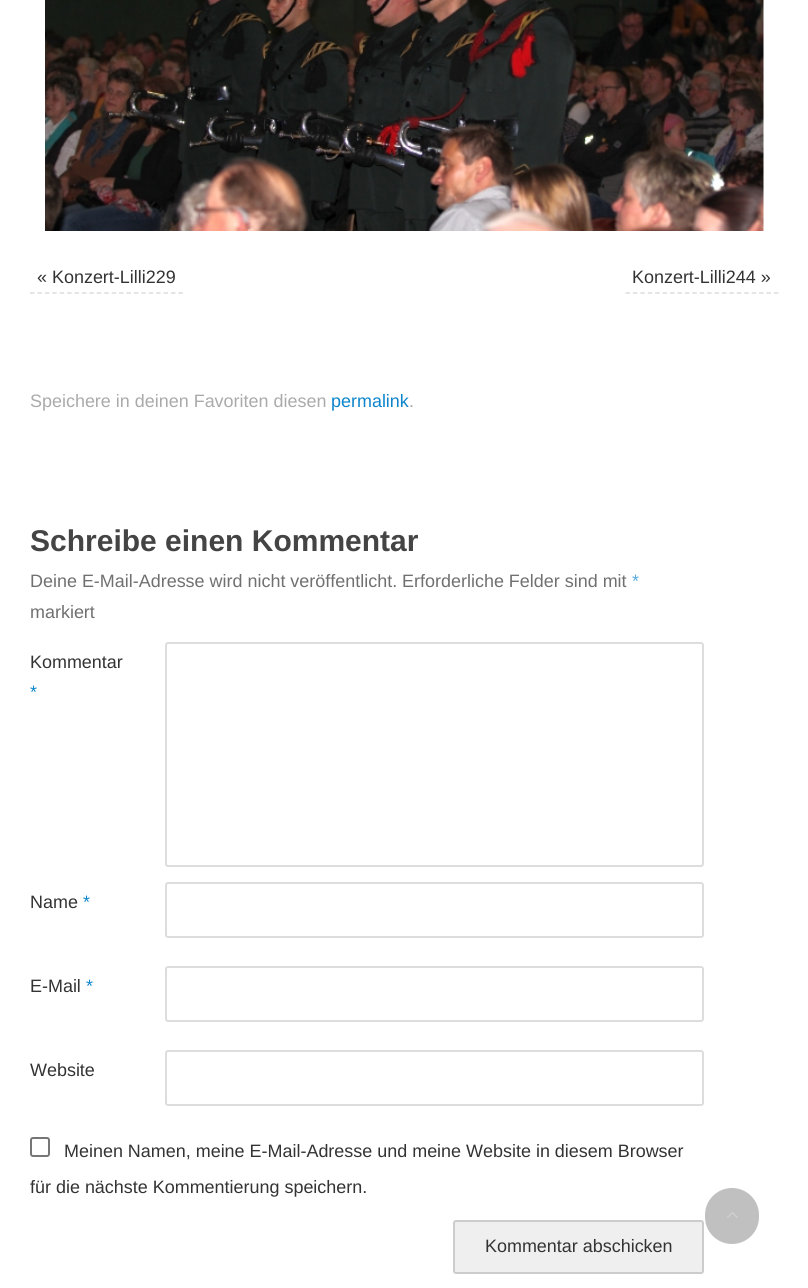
#include <cairo/cairo.h>
#include <math.h>
#include <stddef.h>

static cairo_t *cr;

static void use_color(int r, int g, int b) {
  cairo_set_source_rgb(cr, r / 255.0, g / 255.0, b / 255.0);
}

static void text(double x, double y, const char *s, const char *family, double size, int italic, int bold, int r, int g, int b) {
  cairo_select_font_face(cr, family, italic ? CAIRO_FONT_SLANT_ITALIC : CAIRO_FONT_SLANT_NORMAL,
    bold ? CAIRO_FONT_WEIGHT_BOLD : CAIRO_FONT_WEIGHT_NORMAL);
  cairo_set_font_size(cr, size);
  use_color(r, g, b);
  cairo_move_to(cr, x, y);
  cairo_show_text(cr, s);
}

static void round_rect(double x, double y, double w, double h, double r) {
  cairo_new_sub_path(cr);
  cairo_arc(cr, x + w - r, y + h - r, r, 0, M_PI / 2);
  cairo_arc(cr, x + r, y + h - r, r, M_PI / 2, M_PI);
  cairo_arc(cr, x + r, y + r, r, M_PI, 1.5 * M_PI);
  cairo_arc(cr, x + w - r, y + r, r, 1.5 * M_PI, 2 * M_PI);
  cairo_close_path(cr);
}

static void picture(const char *path, double x, double y, double w, double h) {
  cairo_surface_t *image = cairo_image_surface_create_from_png(path);
  cairo_save(cr);
  cairo_set_source_surface(cr, image, x, y);
  cairo_rectangle(cr, x, y, w, h);
  cairo_fill(cr);
  cairo_restore(cr);
  cairo_surface_destroy(image);
}

static void draw(void) {
  use_color(255, 255, 255);
  cairo_paint(cr);
  picture("img_01.png", 45, 0, 719, 231);
  cairo_new_path(cr);
  cairo_move_to(cr, 30, 293);
  cairo_line_to(cr, 183, 293);
  use_color(221, 221, 221);
  cairo_set_line_width(cr, 1.5);
  cairo_set_dash(cr, (double[]){4.5, 2.92}, 2, 0);
  cairo_stroke(cr);
  cairo_new_path(cr);
  cairo_move_to(cr, 625.5, 293);
  cairo_line_to(cr, 778.5, 293);
  cairo_stroke(cr);
  round_rect(166, 643, 537, 223, 2);
  cairo_set_line_width(cr, 2);
  cairo_set_dash(cr, NULL, 0, 0);
  cairo_stroke(cr);
  round_rect(166, 883, 537, 54, 2);
  cairo_stroke(cr);
  round_rect(166, 967, 537, 54, 2);
  cairo_stroke(cr);
  round_rect(166, 1051, 537, 54, 2);
  cairo_stroke(cr);
  round_rect(31, 1138, 18, 18, 2);
  use_color(118, 118, 118);
  cairo_stroke(cr);
  use_color(239, 239, 239);
  round_rect(454, 1221, 249, 52, 2);
  cairo_fill_preserve(cr);
  use_color(204, 204, 204);
  cairo_stroke(cr);
  use_color(192, 192, 192);
  round_rect(705, 1188, 54, 56, 27);
  cairo_fill(cr);
  picture("img_02.png", 727, 1212, 11, 6);
  text(37, 283, "« Konzert-Lilli229", "Liberation Sans", 17.95, 0, 0, 51, 51, 51);
  text(632, 283, "Konzert-Lilli244 »", "Liberation Sans", 17.95, 0, 0, 51, 51, 51);
  text(30, 407, "Speichere in deinen Favoriten diesen", "Liberation Sans", 17.95, 0, 0, 170, 170, 170);
  text(331, 407, "permalink", "Liberation Sans", 17.95, 0, 0, 13, 133, 204);
  text(409, 407, ".", "Liberation Sans", 17.95, 0, 0, 170, 170, 170);
  text(30, 551, "Schreibe einen Kommentar", "Liberation Sans", 30, 0, 1, 68, 68, 68);
  text(30, 587, "Deine E-Mail-Adresse wird nicht veröffentlicht. Erforderliche Felder sind mit", "Liberation Sans", 17.95, 0, 0, 112, 112, 112);
  text(632, 587, "*", "Liberation Sans", 17.95, 0, 0, 86, 170, 219);
  text(30, 618, "markiert", "Liberation Sans", 17.95, 0, 0, 112, 112, 112);
  text(30, 668, "Kommentar", "Liberation Sans", 17.95, 0, 0, 51, 51, 51);
  text(30, 698, "*", "Liberation Sans", 17.95, 0, 0, 13, 133, 204);
  text(30, 908, "Name", "Liberation Sans", 17.95, 0, 0, 51, 51, 51);
  text(83, 908, "*", "Liberation Sans", 17.95, 0, 0, 13, 133, 204);
  text(30, 992, "E-Mail", "Liberation Sans", 17.95, 0, 0, 51, 51, 51);
  text(86, 992, "*", "Liberation Sans", 17.95, 0, 0, 13, 133, 204);
  text(30, 1076, "Website", "Liberation Sans", 17.95, 0, 0, 51, 51, 51);
  text(64, 1157, "Meinen Namen, meine E-Mail-Adresse und meine Website in diesem Browser", "Liberation Sans", 17.95, 0, 0, 51, 51, 51);
  text(30, 1193, "für die nächste Kommentierung speichern.", "Liberation Sans", 17.95, 0, 0, 51, 51, 51);
  text(485, 1252, "Kommentar abschicken", "Liberation Sans", 17.95, 0, 0, 51, 51, 51);
}

int main(void) {
  cairo_surface_t *surface = cairo_image_surface_create(CAIRO_FORMAT_RGB24, 808, 1288);
  cr = cairo_create(surface);
  cairo_font_options_t *options = cairo_font_options_create();
  cairo_font_options_set_hint_metrics(options, CAIRO_HINT_METRICS_OFF);
  cairo_font_options_set_hint_style(options, CAIRO_HINT_STYLE_NONE);
  cairo_set_font_options(cr, options);
  cairo_set_miter_limit(cr, 4);
  draw();
  cairo_surface_write_to_png(surface, "out.png");
  cairo_font_options_destroy(options);
  cairo_destroy(cr);
  cairo_surface_destroy(surface);
  return 0;
}
